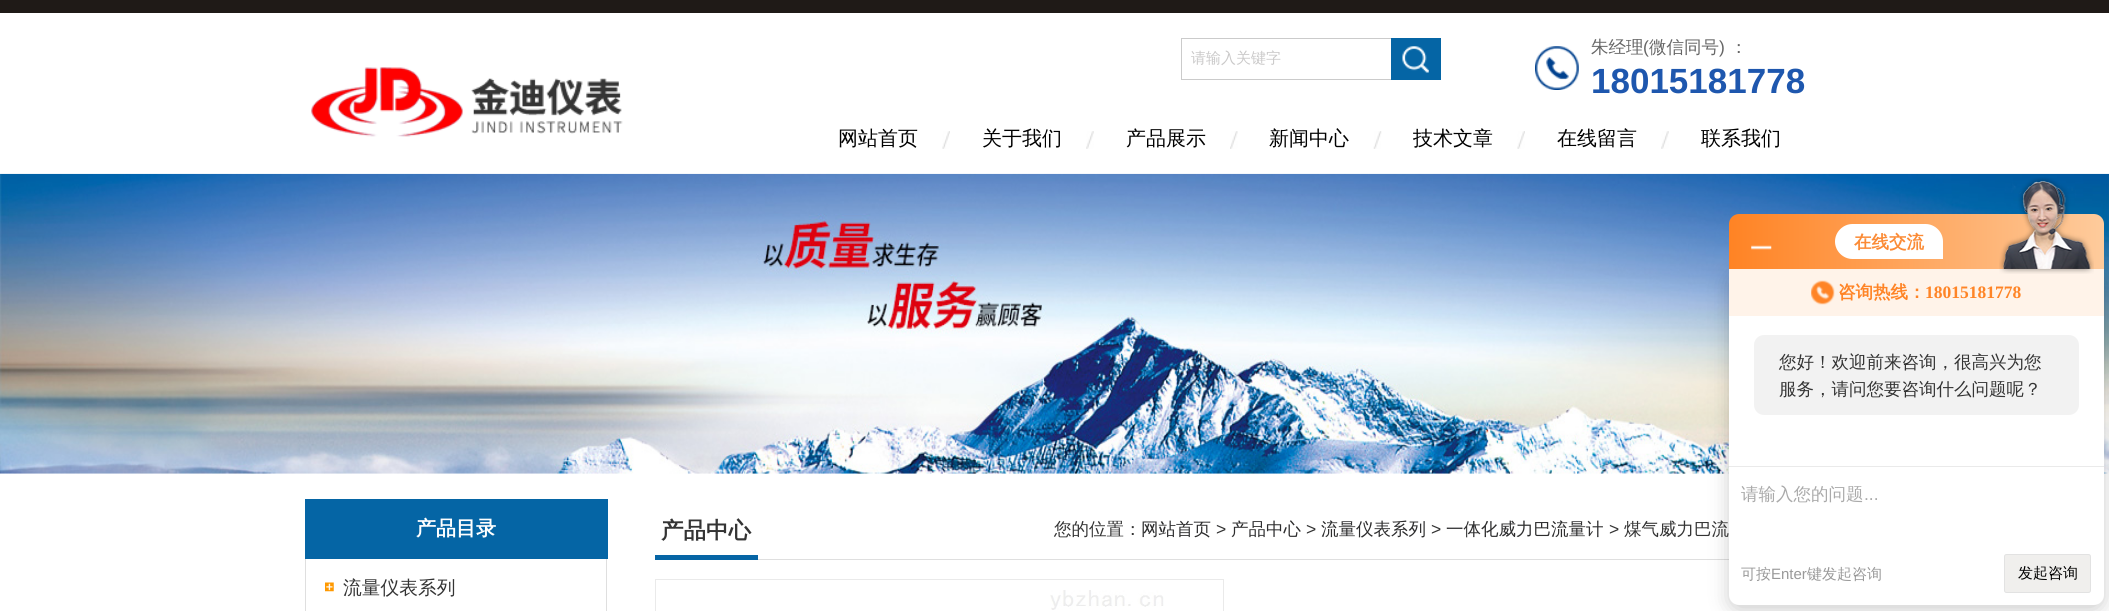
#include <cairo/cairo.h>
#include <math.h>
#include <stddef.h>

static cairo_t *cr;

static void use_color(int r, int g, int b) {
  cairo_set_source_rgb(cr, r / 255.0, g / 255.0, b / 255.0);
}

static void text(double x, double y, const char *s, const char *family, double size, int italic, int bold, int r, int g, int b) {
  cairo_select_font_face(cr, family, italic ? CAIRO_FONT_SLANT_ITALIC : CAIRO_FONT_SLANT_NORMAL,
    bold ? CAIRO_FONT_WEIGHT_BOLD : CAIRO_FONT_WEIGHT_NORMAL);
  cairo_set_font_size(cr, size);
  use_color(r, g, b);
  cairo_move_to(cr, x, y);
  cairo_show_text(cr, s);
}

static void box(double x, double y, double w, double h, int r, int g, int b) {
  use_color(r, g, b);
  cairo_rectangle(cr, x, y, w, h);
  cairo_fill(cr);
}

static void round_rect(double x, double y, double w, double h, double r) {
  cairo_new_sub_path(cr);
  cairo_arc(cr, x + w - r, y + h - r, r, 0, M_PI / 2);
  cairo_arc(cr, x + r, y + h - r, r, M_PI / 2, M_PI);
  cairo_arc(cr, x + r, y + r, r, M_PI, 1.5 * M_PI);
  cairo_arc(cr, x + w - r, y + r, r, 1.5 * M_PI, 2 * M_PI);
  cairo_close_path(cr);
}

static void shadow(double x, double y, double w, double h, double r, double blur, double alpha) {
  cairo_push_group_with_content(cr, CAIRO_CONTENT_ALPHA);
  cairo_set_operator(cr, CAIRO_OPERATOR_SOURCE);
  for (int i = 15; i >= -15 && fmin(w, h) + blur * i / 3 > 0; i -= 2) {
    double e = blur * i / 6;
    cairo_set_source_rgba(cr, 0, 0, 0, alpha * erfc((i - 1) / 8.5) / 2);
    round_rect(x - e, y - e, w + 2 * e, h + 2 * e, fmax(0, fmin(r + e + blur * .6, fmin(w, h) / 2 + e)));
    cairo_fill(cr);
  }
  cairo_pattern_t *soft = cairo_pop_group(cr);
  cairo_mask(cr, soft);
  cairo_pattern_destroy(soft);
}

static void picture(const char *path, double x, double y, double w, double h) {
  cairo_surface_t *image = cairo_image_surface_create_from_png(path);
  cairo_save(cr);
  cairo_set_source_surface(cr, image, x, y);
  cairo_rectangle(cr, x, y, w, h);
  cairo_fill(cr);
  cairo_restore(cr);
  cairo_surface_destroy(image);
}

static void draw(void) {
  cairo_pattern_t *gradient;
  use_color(255, 255, 255);
  cairo_paint(cr);
  box(0, 0, 2109, 13, 31, 26, 23);
  picture("img_01.png", 311, 67, 312, 70);
  box(1181, 38, 210, 1, 203, 203, 203);
  box(1181, 79, 210, 1, 203, 203, 203);
  box(1181, 38, 1, 42, 203, 203, 203);
  box(1391, 38, 50, 42, 5, 101, 165);
  picture("img_02.png", 1402, 46, 27, 27);
  picture("img_03.png", 1535, 46, 44, 44);
  picture("img_04.png", 942, 131, 8, 18);
  picture("img_05.png", 1086, 131, 8, 18);
  picture("img_06.png", 1230, 131, 8, 18);
  picture("img_07.png", 1373, 131, 9, 18);
  picture("img_08.png", 1517, 131, 8, 18);
  picture("img_05.png", 1661, 131, 8, 18);
  picture("img_09.png", 0, 173, 2109, 301);
  box(305, 499, 303, 60, 5, 101, 165);
  box(606, 559, 1, 52, 223, 223, 223);
  box(305, 559, 1, 52, 223, 223, 223);
  picture("img_10.png", 325, 582, 9, 10);
  box(758, 559, 971, 1, 223, 223, 223);
  box(655, 555, 103, 5, 6, 101, 165);
  cairo_rectangle(cr, 655.5, 579.5, 568, 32);
  use_color(234, 234, 234);
  cairo_set_line_width(cr, 1);
  cairo_stroke(cr);
  picture("img_11.png", 1050, 590, 114, 20);
  use_color(0, 0, 0);
  shadow(1729, 274, 375, 336, 10, 10, 0.2);
  gradient = cairo_pattern_create_linear(1729, 241, 2104, 241);
  cairo_pattern_add_color_stop_rgba(gradient, 0, 1, 0.514, 0.141, 1);
  cairo_pattern_add_color_stop_rgba(gradient, 1, 0.996, 0.796, 0.612, 1);
  cairo_set_source(cr, gradient);
  cairo_pattern_destroy(gradient);
  cairo_new_path(cr);
  cairo_move_to(cr, 1739, 214);
  cairo_line_to(cr, 2094, 214);
  cairo_curve_to(cr, 2099.5, 214, 2104, 218.5, 2104, 224);
  cairo_line_to(cr, 2104, 269);
  cairo_line_to(cr, 1729, 269);
  cairo_line_to(cr, 1729, 224);
  cairo_curve_to(cr, 1729, 218.5, 1733.5, 214, 1739, 214);
  cairo_close_path(cr);
  cairo_fill(cr);
  picture("img_12.png", 1751, 245, 21, 5);
  use_color(255, 255, 255);
  cairo_new_path(cr);
  cairo_move_to(cr, 1852.5, 224);
  cairo_line_to(cr, 1925.5, 224);
  cairo_curve_to(cr, 1935, 224, 1943, 232, 1943, 241.5);
  cairo_line_to(cr, 1943, 259);
  cairo_line_to(cr, 1852.5, 259);
  cairo_curve_to(cr, 1843, 259, 1835, 251, 1835, 241.5);
  cairo_curve_to(cr, 1835, 232, 1843, 224, 1852.5, 224);
  cairo_close_path(cr);
  cairo_fill(cr);
  cairo_new_path(cr);
  cairo_move_to(cr, 1729, 269);
  cairo_line_to(cr, 2104, 269);
  cairo_line_to(cr, 2104, 595);
  cairo_curve_to(cr, 2104, 600.5, 2099.5, 605, 2094, 605);
  cairo_line_to(cr, 1739, 605);
  cairo_curve_to(cr, 1733.5, 605, 1729, 600.5, 1729, 595);
  cairo_close_path(cr);
  cairo_fill(cr);
  box(1729, 269, 375, 47, 255, 243, 233);
  picture("img_13.png", 1999, 177, 95, 97);
  picture("img_14.png", 1811, 280, 24, 25);
  use_color(242, 242, 242);
  round_rect(1754, 335, 325, 80, 10);
  cairo_fill(cr);
  box(1729, 466, 375, 1, 234, 234, 234);
  use_color(240, 239, 237);
  round_rect(2004.5, 554.5, 86, 38, 2);
  cairo_fill_preserve(cr);
  use_color(226, 226, 226);
  cairo_stroke(cr);
  text(1191, 63, "请输入关键字", "WenQuanYi Zen Hei Medium", 15, 0, 0, 202, 201, 201);
  text(1591, 53, "朱经理", "WenQuanYi Zen Hei Medium", 17.5, 0, 0, 102, 102, 102);
  text(1643, 53, "(", "Liberation Sans", 17.5, 0, 0, 102, 102, 102);
  text(1649, 53, "微信同号", "WenQuanYi Zen Hei Medium", 17.5, 0, 0, 102, 102, 102);
  text(1719, 53, ")", "Liberation Sans", 17.5, 0, 0, 102, 102, 102);
  text(1730, 53, "：", "WenQuanYi Zen Hei Medium", 17.5, 0, 0, 102, 102, 102);
  text(1591, 93, "18015181778", "Liberation Sans", 35, 0, 1, 30, 87, 174);
  text(838, 145, "网站首页", "WenQuanYi Zen Hei Medium", 20, 0, 0, 1, 1, 1);
  text(982, 145, "关于我们", "WenQuanYi Zen Hei Medium", 20, 0, 0, 1, 1, 1);
  text(1126, 145, "产品展示", "WenQuanYi Zen Hei Medium", 20, 0, 0, 1, 1, 1);
  text(1269, 145, "新闻中心", "WenQuanYi Zen Hei Medium", 20, 0, 0, 1, 1, 1);
  text(1413, 145, "技术文章", "WenQuanYi Zen Hei Medium", 20, 0, 0, 1, 1, 1);
  text(1557, 145, "在线留言", "WenQuanYi Zen Hei Medium", 20, 0, 0, 1, 1, 1);
  text(1701, 145, "联系我们", "WenQuanYi Zen Hei Medium", 20, 0, 0, 1, 1, 1);
  text(416, 535, "产品目录", "WenQuanYi Zen Hei", 20, 0, 1, 255, 255, 255);
  text(343, 594, "流量仪表系列", "WenQuanYi Zen Hei Medium", 18.75, 0, 0, 52, 52, 52);
  text(661, 538, "产品中心", "WenQuanYi Zen Hei", 22.5, 0, 1, 52, 52, 52);
  text(1054, 535, "您的位置：", "WenQuanYi Zen Hei Medium", 17.5, 0, 0, 52, 52, 52);
  text(1141, 535, "网站首页", "WenQuanYi Zen Hei Medium", 17.5, 0, 0, 45, 45, 46);
  text(1216, 535, ">", "Liberation Sans", 17.5, 0, 0, 52, 52, 52);
  text(1231, 535, "产品中心", "WenQuanYi Zen Hei Medium", 17.5, 0, 0, 45, 45, 46);
  text(1306, 535, ">", "Liberation Sans", 17.5, 0, 0, 52, 52, 52);
  text(1321, 535, "流量仪表系列", "WenQuanYi Zen Hei Medium", 17.5, 0, 0, 45, 45, 46);
  text(1431, 535, ">", "Liberation Sans", 17.5, 0, 0, 52, 52, 52);
  text(1446, 535, "一体化威力巴流量计", "WenQuanYi Zen Hei Medium", 17.5, 0, 0, 45, 45, 46);
  text(1609, 535, ">", "Liberation Sans", 17.5, 0, 0, 52, 52, 52);
  text(1624, 535, "煤气威力巴流", "WenQuanYi Zen Hei Medium", 17.5, 0, 0, 52, 52, 52);
  text(1854, 248, "在线交流", "WenQuanYi Zen Hei", 17.5, 0, 1, 251, 139, 54);
  text(1838, 298, "咨询热线：", "WenQuanYi Zen Hei", 17.5, 0, 1, 255, 132, 38);
  text(1925, 298, "18015181778", "Liberation Serif", 17.5, 0, 1, 255, 132, 38);
  text(1779, 368, "您好！欢迎前来咨询，很高兴为您", "WenQuanYi Zen Hei Medium", 17.5, 0, 0, 52, 52, 52);
  text(1779, 395, "服务，请问您要咨询什么问题呢？", "WenQuanYi Zen Hei Medium", 17.5, 0, 0, 52, 52, 52);
  text(1741, 500, "请输入您的问题", "WenQuanYi Zen Hei Medium", 17.5, 0, 0, 170, 170, 170);
  text(1864, 500, "...", "Liberation Sans", 17.5, 0, 0, 170, 170, 170);
  text(1741, 579, "可按", "WenQuanYi Zen Hei Medium", 15, 0, 0, 153, 153, 153);
  text(1771, 579, "Enter", "Liberation Sans", 15, 0, 0, 153, 153, 153);
  text(1807, 579, "键发起咨询", "WenQuanYi Zen Hei Medium", 15, 0, 0, 153, 153, 153);
  text(2018, 578, "发起咨询", "WenQuanYi Zen Hei Medium", 15, 0, 0, 1, 1, 1);
}

int main(void) {
  cairo_surface_t *surface = cairo_image_surface_create(CAIRO_FORMAT_RGB24, 2109, 611);
  cr = cairo_create(surface);
  cairo_font_options_t *options = cairo_font_options_create();
  cairo_font_options_set_hint_metrics(options, CAIRO_HINT_METRICS_OFF);
  cairo_font_options_set_hint_style(options, CAIRO_HINT_STYLE_NONE);
  cairo_set_font_options(cr, options);
  cairo_set_miter_limit(cr, 4);
  draw();
  cairo_surface_write_to_png(surface, "out.png");
  cairo_font_options_destroy(options);
  cairo_destroy(cr);
  cairo_surface_destroy(surface);
  return 0;
}
